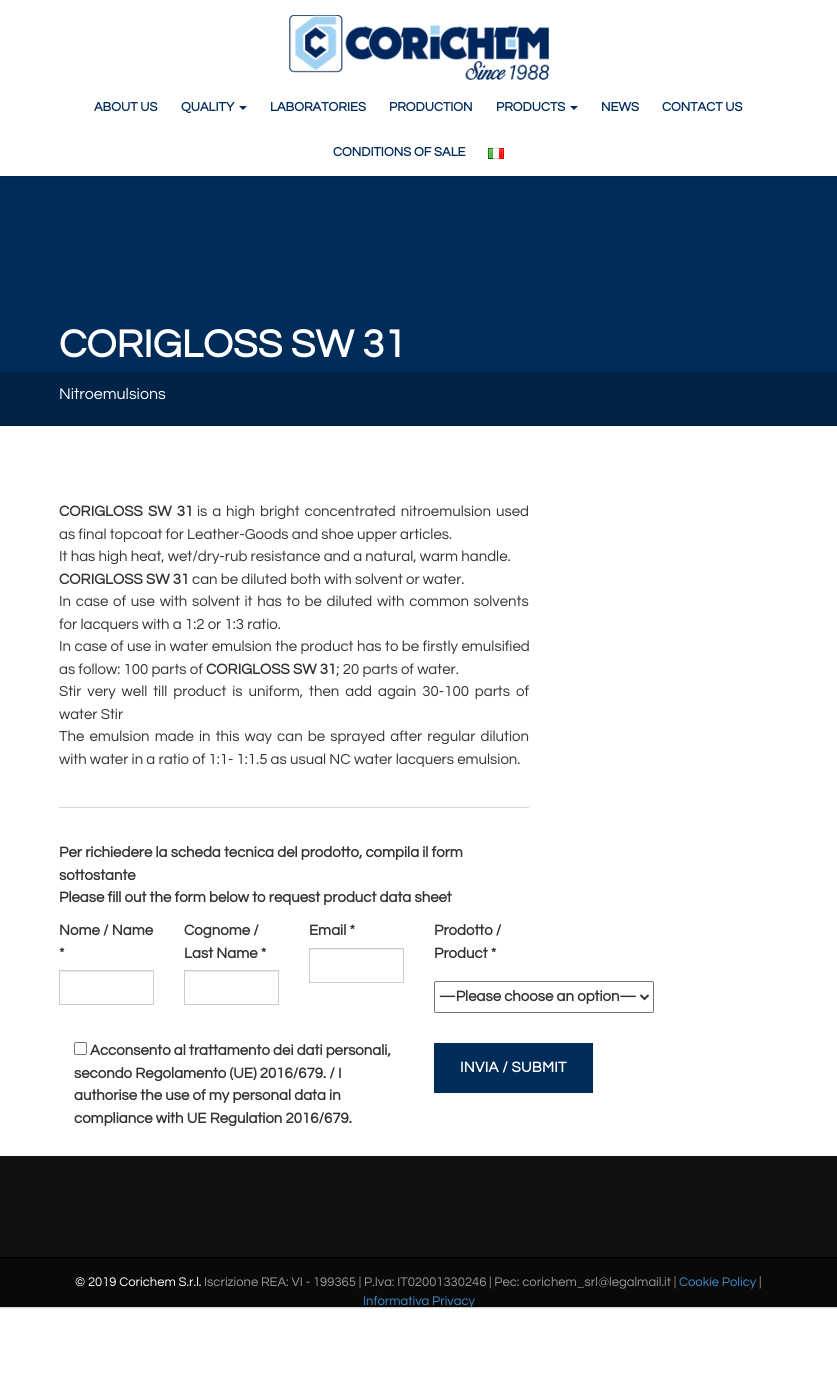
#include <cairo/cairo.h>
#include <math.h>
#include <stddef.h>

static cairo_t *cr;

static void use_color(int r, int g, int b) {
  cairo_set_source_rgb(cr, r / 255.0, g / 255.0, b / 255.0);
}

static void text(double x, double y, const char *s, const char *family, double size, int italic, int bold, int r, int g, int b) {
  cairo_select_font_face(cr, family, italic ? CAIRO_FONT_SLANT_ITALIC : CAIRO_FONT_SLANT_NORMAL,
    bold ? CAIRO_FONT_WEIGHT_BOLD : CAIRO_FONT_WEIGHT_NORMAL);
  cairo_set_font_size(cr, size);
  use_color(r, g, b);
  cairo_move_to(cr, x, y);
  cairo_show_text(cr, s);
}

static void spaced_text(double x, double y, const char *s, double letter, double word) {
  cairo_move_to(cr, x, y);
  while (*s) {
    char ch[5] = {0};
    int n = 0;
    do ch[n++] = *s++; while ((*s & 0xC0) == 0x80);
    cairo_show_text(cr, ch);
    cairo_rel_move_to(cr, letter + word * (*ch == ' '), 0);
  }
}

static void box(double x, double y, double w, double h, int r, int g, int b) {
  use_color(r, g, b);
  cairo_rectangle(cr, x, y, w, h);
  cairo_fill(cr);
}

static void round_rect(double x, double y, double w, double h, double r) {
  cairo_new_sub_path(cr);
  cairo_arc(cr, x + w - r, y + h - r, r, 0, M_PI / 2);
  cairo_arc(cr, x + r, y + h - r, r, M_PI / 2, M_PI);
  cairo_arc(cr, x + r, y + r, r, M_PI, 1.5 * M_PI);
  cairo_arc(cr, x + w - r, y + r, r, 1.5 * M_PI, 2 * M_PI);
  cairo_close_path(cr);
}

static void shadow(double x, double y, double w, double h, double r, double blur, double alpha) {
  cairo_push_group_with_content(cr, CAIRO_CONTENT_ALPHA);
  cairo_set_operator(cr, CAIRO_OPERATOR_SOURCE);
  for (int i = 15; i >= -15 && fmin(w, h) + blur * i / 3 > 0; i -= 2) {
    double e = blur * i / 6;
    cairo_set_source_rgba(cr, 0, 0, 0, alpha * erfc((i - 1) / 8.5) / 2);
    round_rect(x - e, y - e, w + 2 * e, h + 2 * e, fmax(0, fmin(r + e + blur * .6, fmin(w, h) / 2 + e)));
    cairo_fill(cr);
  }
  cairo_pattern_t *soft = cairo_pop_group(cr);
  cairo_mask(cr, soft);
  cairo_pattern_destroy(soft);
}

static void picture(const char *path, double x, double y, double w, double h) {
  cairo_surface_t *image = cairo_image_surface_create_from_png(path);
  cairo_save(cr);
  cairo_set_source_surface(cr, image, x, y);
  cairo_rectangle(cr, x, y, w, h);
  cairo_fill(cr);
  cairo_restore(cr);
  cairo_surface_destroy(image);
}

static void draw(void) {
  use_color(255, 255, 255);
  cairo_paint(cr);
  box(0, 176, 837, 196, 0, 44, 89);
  cairo_save(cr);
  cairo_rectangle(cr, 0, 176, 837, 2);
  cairo_clip(cr);
  use_color(0, 0, 0);
  shadow(0, 0, 837, 176, 0, 1, 0.5);
  cairo_restore(cr);
  picture("img_01.png", 289, 15, 260, 65);
  use_color(0, 42, 92);
  cairo_new_path(cr);
  cairo_move_to(cr, 239, 106);
  cairo_line_to(cr, 247, 106);
  cairo_line_to(cr, 243, 110);
  cairo_close_path(cr);
  cairo_fill(cr);
  cairo_new_path(cr);
  cairo_move_to(cr, 570, 106);
  cairo_line_to(cr, 578, 106);
  cairo_line_to(cr, 574, 110);
  cairo_close_path(cr);
  cairo_fill(cr);
  picture("img_02.png", 488, 148, 16, 11);
  box(0, 372, 837, 54, 0, 35, 71);
  cairo_save(cr);
  cairo_set_fill_rule(cr, CAIRO_FILL_RULE_EVEN_ODD);
  cairo_new_path(cr);
  cairo_move_to(cr, 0, 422);
  cairo_line_to(cr, 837, 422);
  cairo_line_to(cr, 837, 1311);
  cairo_line_to(cr, 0, 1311);
  cairo_close_path(cr);
  cairo_move_to(cr, 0, 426);
  cairo_line_to(cr, 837, 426);
  cairo_line_to(cr, 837, 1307);
  cairo_line_to(cr, 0, 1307);
  cairo_close_path(cr);
  cairo_clip(cr);
  use_color(0, 0, 0);
  shadow(0, 426, 837, 881, 0, 1, 0.5);
  cairo_restore(cr);
  box(59, 807, 470, 1, 216, 216, 216);
  box(60, 971, 93, 1, 236, 236, 236);
  cairo_rectangle(cr, 59.5, 970.5, 94, 34);
  use_color(204, 204, 204);
  cairo_set_line_width(cr, 1);
  cairo_stroke(cr);
  box(185, 971, 93, 1, 236, 236, 236);
  cairo_rectangle(cr, 184.5, 970.5, 94, 34);
  use_color(204, 204, 204);
  cairo_stroke(cr);
  box(310, 949, 93, 1, 236, 236, 236);
  cairo_rectangle(cr, 309.5, 948.5, 94, 34);
  use_color(204, 204, 204);
  cairo_stroke(cr);
  round_rect(434.5, 981.5, 219, 31, 1.5);
  use_color(118, 118, 118);
  cairo_stroke(cr);
  cairo_new_path(cr);
  cairo_move_to(cr, 640.5, 995);
  cairo_line_to(cr, 644.5, 999);
  cairo_line_to(cr, 648.5, 995);
  use_color(51, 51, 51);
  cairo_set_line_width(cr, 2);
  cairo_stroke(cr);
  round_rect(74.5, 1042.5, 12, 12, 1.5);
  use_color(118, 118, 118);
  cairo_set_line_width(cr, 1);
  cairo_stroke(cr);
  box(434, 1043, 159, 50, 0, 44, 89);
  box(0, 1156, 837, 101, 17, 17, 17);
  box(0, 1258, 837, 49, 9, 9, 9);
  box(0, 1257, 837, 1, 0, 0, 0);
  text(94, 111, "ABOUT US", "Questrial", 13, 0, 1, 0, 42, 92);
  text(181, 111, "QUALITY", "Questrial", 13, 0, 1, 0, 42, 92);
  text(270, 111, "LABORATORIES", "Questrial", 13, 0, 1, 0, 42, 92);
  text(389, 111, "PRODUCTION", "Questrial", 13, 0, 1, 0, 42, 92);
  text(496, 111, "PRODUCTS", "Questrial", 13, 0, 1, 0, 42, 92);
  text(601, 111, "NEWS", "Questrial", 13, 0, 1, 0, 42, 92);
  text(662, 111, "CONTACT US", "Questrial", 13, 0, 1, 0, 42, 92);
  text(333, 156, "CONDITIONS OF SALE", "Questrial", 13, 0, 1, 0, 42, 92);
  text(59, 357, "CORIGLOSS SW 31", "Questrial", 40, 0, 1, 255, 255, 255);
  text(59, 399, "Nitroemulsions", "Questrial", 16, 0, 0, 255, 255, 255);
  cairo_select_font_face(cr, "Questrial", CAIRO_FONT_SLANT_NORMAL, CAIRO_FONT_WEIGHT_BOLD);
  cairo_set_font_size(cr, 15);
  use_color(51, 51, 51);
  spaced_text(59, 516, "CORIGLOSS SW 31", 0, 2);
  cairo_select_font_face(cr, "Questrial", CAIRO_FONT_SLANT_NORMAL, CAIRO_FONT_WEIGHT_NORMAL);
  spaced_text(197, 516, "is a high bright concentrated nitroemulsion used", 0, 1.75);
  text(59, 539, "as final topcoat for Leather-Goods and shoe upper articles.", "Questrial", 15, 0, 0, 51, 51, 51);
  text(59, 561, "It has high heat, wet/dry-rub resistance and a natural, warm handle.", "Questrial", 15, 0, 0, 51, 51, 51);
  text(59, 584, "CORIGLOSS SW 31", "Questrial", 15, 0, 1, 51, 51, 51);
  text(192, 584, "can be diluted both with solvent or water.", "Questrial", 15, 0, 0, 51, 51, 51);
  spaced_text(59, 606, "In case of use with solvent it has to be diluted with common solvents", 0, 1.5);
  text(59, 629, "for lacquers with a 1:2 or 1:3 ratio.", "Questrial", 15, 0, 0, 51, 51, 51);
  spaced_text(59, 651, "In case of use in water emulsion the product has to be firstly emulsified", 0, 0.25);
  text(59, 674, "as follow: 100 parts of", "Questrial", 15, 0, 0, 51, 51, 51);
  text(206, 674, "CORIGLOSS SW 31", "Questrial", 15, 0, 1, 51, 51, 51);
  text(336, 674, "; 20 parts of water.", "Questrial", 15, 0, 0, 51, 51, 51);
  spaced_text(59, 696, "Stir very well till product is uniform, then add again 30-100 parts of", 0, 2.75);
  text(59, 719, "water Stir", "Questrial", 15, 0, 0, 51, 51, 51);
  spaced_text(59, 741, "The emulsion made in this way can be sprayed after regular dilution", 0, 1.9);
  text(59, 764, "with water in a ratio of 1:1- 1:1.5 as usual NC water lacquers emulsion.", "Questrial", 15, 0, 0, 51, 51, 51);
  text(59, 857, "Per richiedere la scheda tecnica del prodotto, compila il form", "Questrial", 15, 0, 1, 51, 51, 51);
  text(59, 880, "sottostante", "Questrial", 15, 0, 1, 51, 51, 51);
  text(59, 902, "Please fill out the form below to request product data sheet", "Questrial", 15, 0, 1, 51, 51, 51);
  text(59, 935, "Nome / Name", "Questrial", 15, 0, 1, 51, 51, 51);
  text(59, 958, "*", "Questrial", 15, 0, 1, 51, 51, 51);
  text(184, 935, "Cognome /", "Questrial", 15, 0, 1, 51, 51, 51);
  text(184, 958, "Last Name *", "Questrial", 15, 0, 1, 51, 51, 51);
  text(309, 935, "Email *", "Questrial", 15, 0, 1, 51, 51, 51);
  text(434, 935, "Prodotto /", "Questrial", 15, 0, 1, 51, 51, 51);
  text(434, 958, "Product *", "Questrial", 15, 0, 1, 51, 51, 51);
  text(439, 1001, "—Please choose an option—", "Questrial", 15, 0, 1, 51, 51, 51);
  text(90, 1055, "Acconsento al trattamento dei dati personali,", "Questrial", 15, 0, 1, 51, 51, 51);
  text(74, 1078, "secondo Regolamento (UE) 2016/679. / I", "Questrial", 15, 0, 1, 51, 51, 51);
  text(74, 1100, "authorise the use of my personal data in", "Questrial", 15, 0, 1, 51, 51, 51);
  text(74, 1123, "compliance with UE Regulation 2016/679.", "Questrial", 15, 0, 1, 51, 51, 51);
  use_color(255, 255, 255);
  spaced_text(460, 1072, "INVIA / SUBMIT", 0.25, 0);
  text(75, 1286, "© 2019 Corichem S.r.l.", "Questrial", 13, 0, 0, 255, 255, 255);
  text(204, 1286, "Iscrizione REA: VI - 199365 | P.Iva: IT02001330246 | Pec: corichem_srl@legalmail.it |", "Questrial", 13, 0, 0, 153, 153, 153);
  text(679, 1286, "Cookie Policy", "Questrial", 13, 0, 0, 66, 139, 202);
  text(759, 1286, "|", "Questrial", 13, 0, 0, 153, 153, 153);
  text(363, 1305, "Informativa Privacy", "Questrial", 13, 0, 0, 66, 139, 202);
}

int main(void) {
  cairo_surface_t *surface = cairo_image_surface_create(CAIRO_FORMAT_RGB24, 837, 1400);
  cr = cairo_create(surface);
  cairo_font_options_t *options = cairo_font_options_create();
  cairo_font_options_set_hint_metrics(options, CAIRO_HINT_METRICS_OFF);
  cairo_font_options_set_hint_style(options, CAIRO_HINT_STYLE_NONE);
  cairo_set_font_options(cr, options);
  cairo_set_miter_limit(cr, 4);
  draw();
  cairo_surface_write_to_png(surface, "out.png");
  cairo_font_options_destroy(options);
  cairo_destroy(cr);
  cairo_surface_destroy(surface);
  return 0;
}
